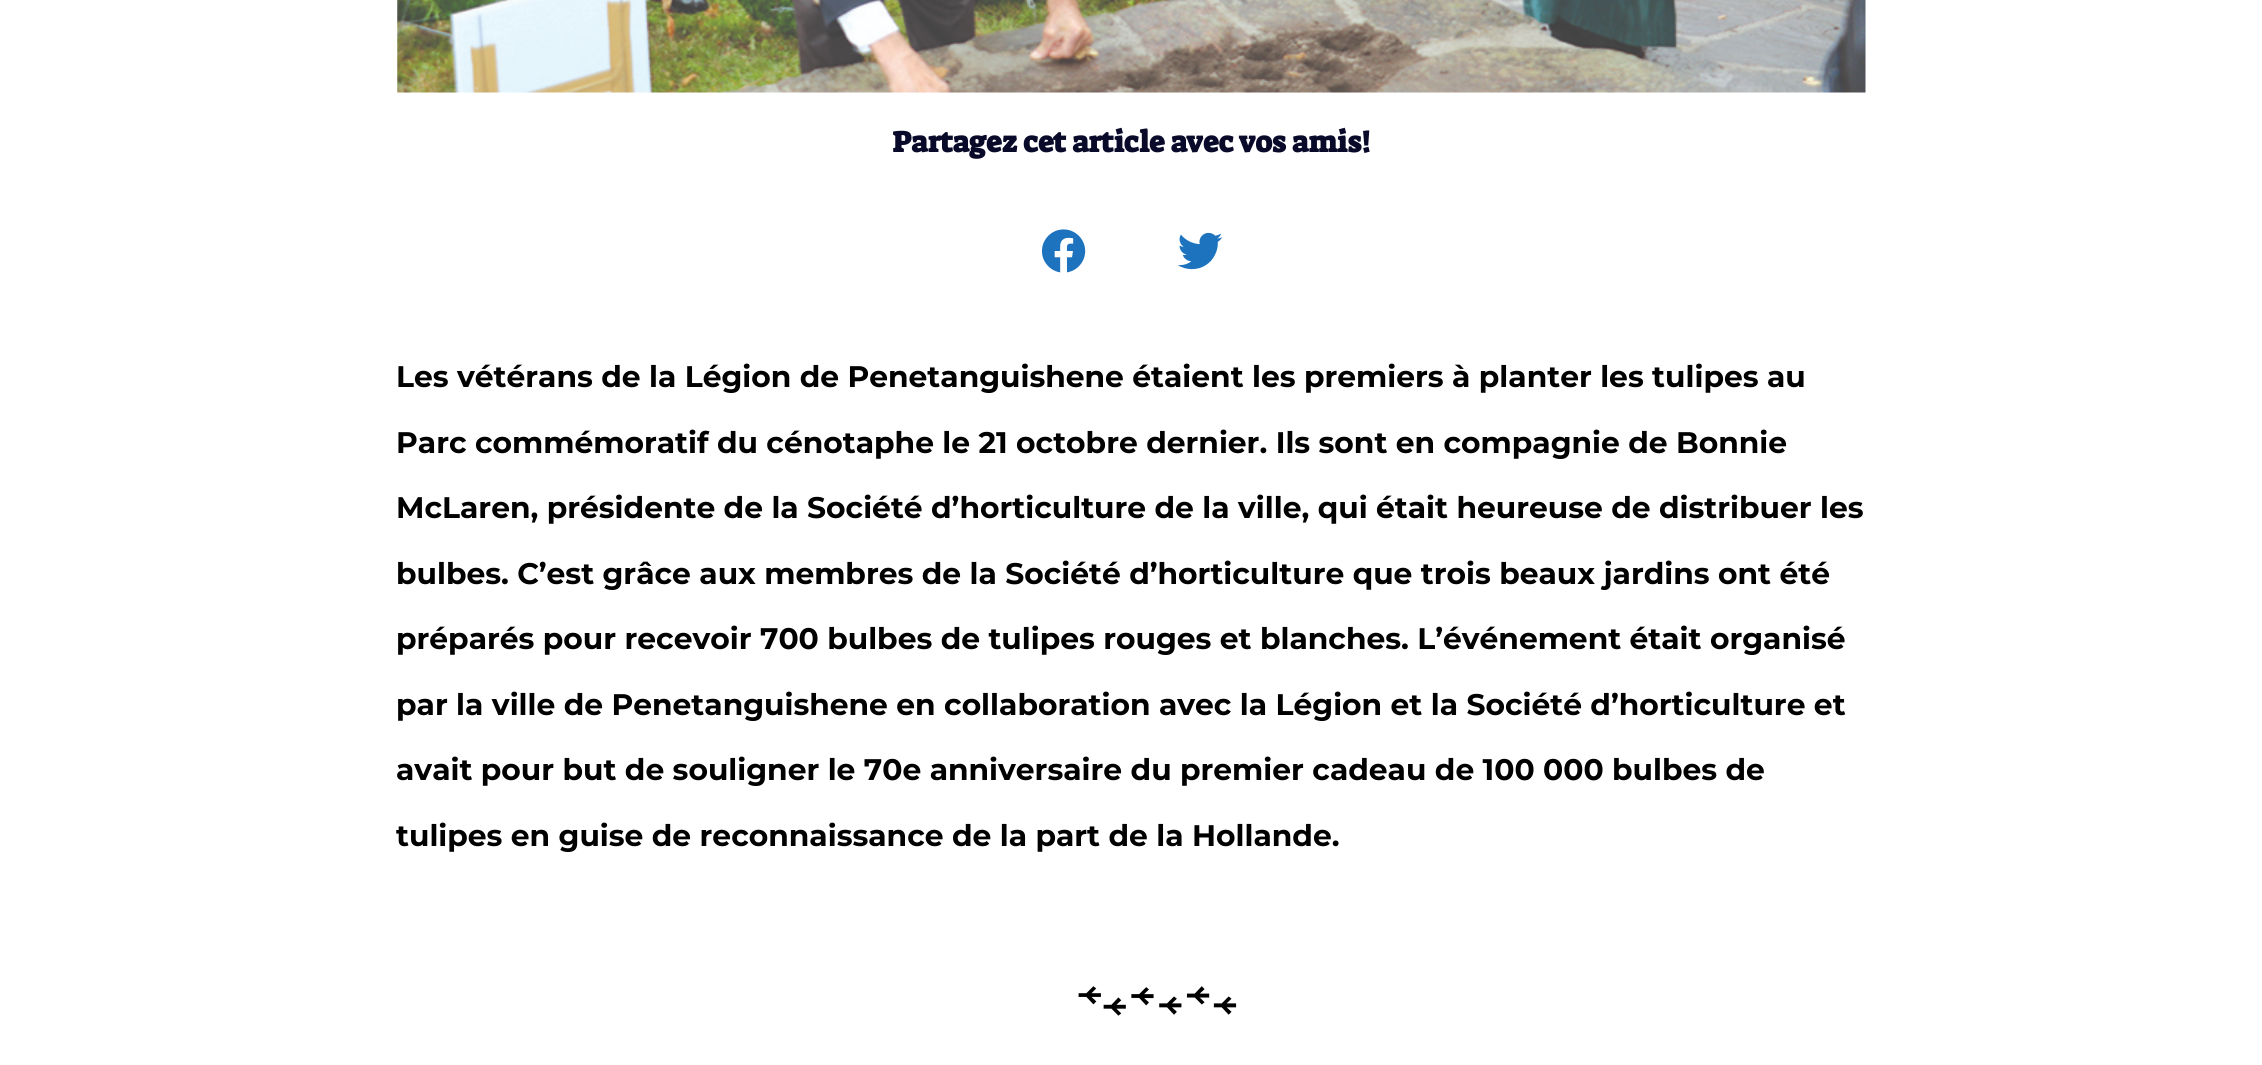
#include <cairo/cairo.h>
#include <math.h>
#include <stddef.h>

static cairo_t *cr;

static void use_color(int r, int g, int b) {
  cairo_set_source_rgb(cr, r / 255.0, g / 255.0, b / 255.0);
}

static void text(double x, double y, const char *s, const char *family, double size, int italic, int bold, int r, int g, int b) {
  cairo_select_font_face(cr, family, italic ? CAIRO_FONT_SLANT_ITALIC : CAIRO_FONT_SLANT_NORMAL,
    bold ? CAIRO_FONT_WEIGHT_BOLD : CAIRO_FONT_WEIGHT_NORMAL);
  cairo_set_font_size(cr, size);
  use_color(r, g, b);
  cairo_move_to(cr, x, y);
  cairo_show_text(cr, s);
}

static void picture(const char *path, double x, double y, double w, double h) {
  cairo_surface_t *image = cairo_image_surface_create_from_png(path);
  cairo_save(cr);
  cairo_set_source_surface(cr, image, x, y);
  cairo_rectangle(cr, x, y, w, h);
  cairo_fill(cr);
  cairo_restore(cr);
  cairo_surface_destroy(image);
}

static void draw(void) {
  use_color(255, 255, 255);
  cairo_paint(cr);
  picture("img_01.png", 397, 0, 1469, 93);
  picture("img_02.png", 1041, 229, 45, 44);
  picture("img_03.png", 1178, 232, 45, 38);
  picture("img_04.png", 1078, 986, 159, 30);
  text(892, 152, "Partagez cet article avec vos amis!", "Suez One", 29.75, 0, 1, 9, 10, 42);
  text(396, 387, "Les vétérans de la Légion de Penetanguishene étaient les premiers à planter les tulipes au", "Montserrat", 29.75, 0, 1, 0, 0, 0);
  text(396, 453, "Parc commémoratif du cénotaphe le 21 octobre dernier. Ils sont en compagnie de Bonnie", "Montserrat", 29.75, 0, 1, 0, 0, 0);
  text(396, 518, "McLaren, présidente de la Société d’horticulture de la ville, qui était heureuse de distribuer les", "Montserrat", 29.75, 0, 1, 0, 0, 0);
  text(396, 584, "bulbes. C’est grâce aux membres de la Société d’horticulture que trois beaux jardins ont été", "Montserrat", 29.75, 0, 1, 0, 0, 0);
  text(396, 649, "préparés pour recevoir 700 bulbes de tulipes rouges et blanches. L’événement était organisé", "Montserrat", 29.75, 0, 1, 0, 0, 0);
  text(396, 715, "par la ville de Penetanguishene en collaboration avec la Légion et la Société d’horticulture et", "Montserrat", 29.75, 0, 1, 0, 0, 0);
  text(396, 780, "avait pour but de souligner le 70e anniversaire du premier cadeau de 100 000 bulbes de", "Montserrat", 29.75, 0, 1, 0, 0, 0);
  text(396, 846, "tulipes en guise de reconnaissance de la part de la Hollande.", "Montserrat", 29.75, 0, 1, 0, 0, 0);
}

int main(void) {
  cairo_surface_t *surface = cairo_image_surface_create(CAIRO_FORMAT_RGB24, 2262, 1065);
  cr = cairo_create(surface);
  cairo_font_options_t *options = cairo_font_options_create();
  cairo_font_options_set_hint_metrics(options, CAIRO_HINT_METRICS_OFF);
  cairo_font_options_set_hint_style(options, CAIRO_HINT_STYLE_NONE);
  cairo_set_font_options(cr, options);
  cairo_set_miter_limit(cr, 4);
  draw();
  cairo_surface_write_to_png(surface, "out.png");
  cairo_font_options_destroy(options);
  cairo_destroy(cr);
  cairo_surface_destroy(surface);
  return 0;
}
